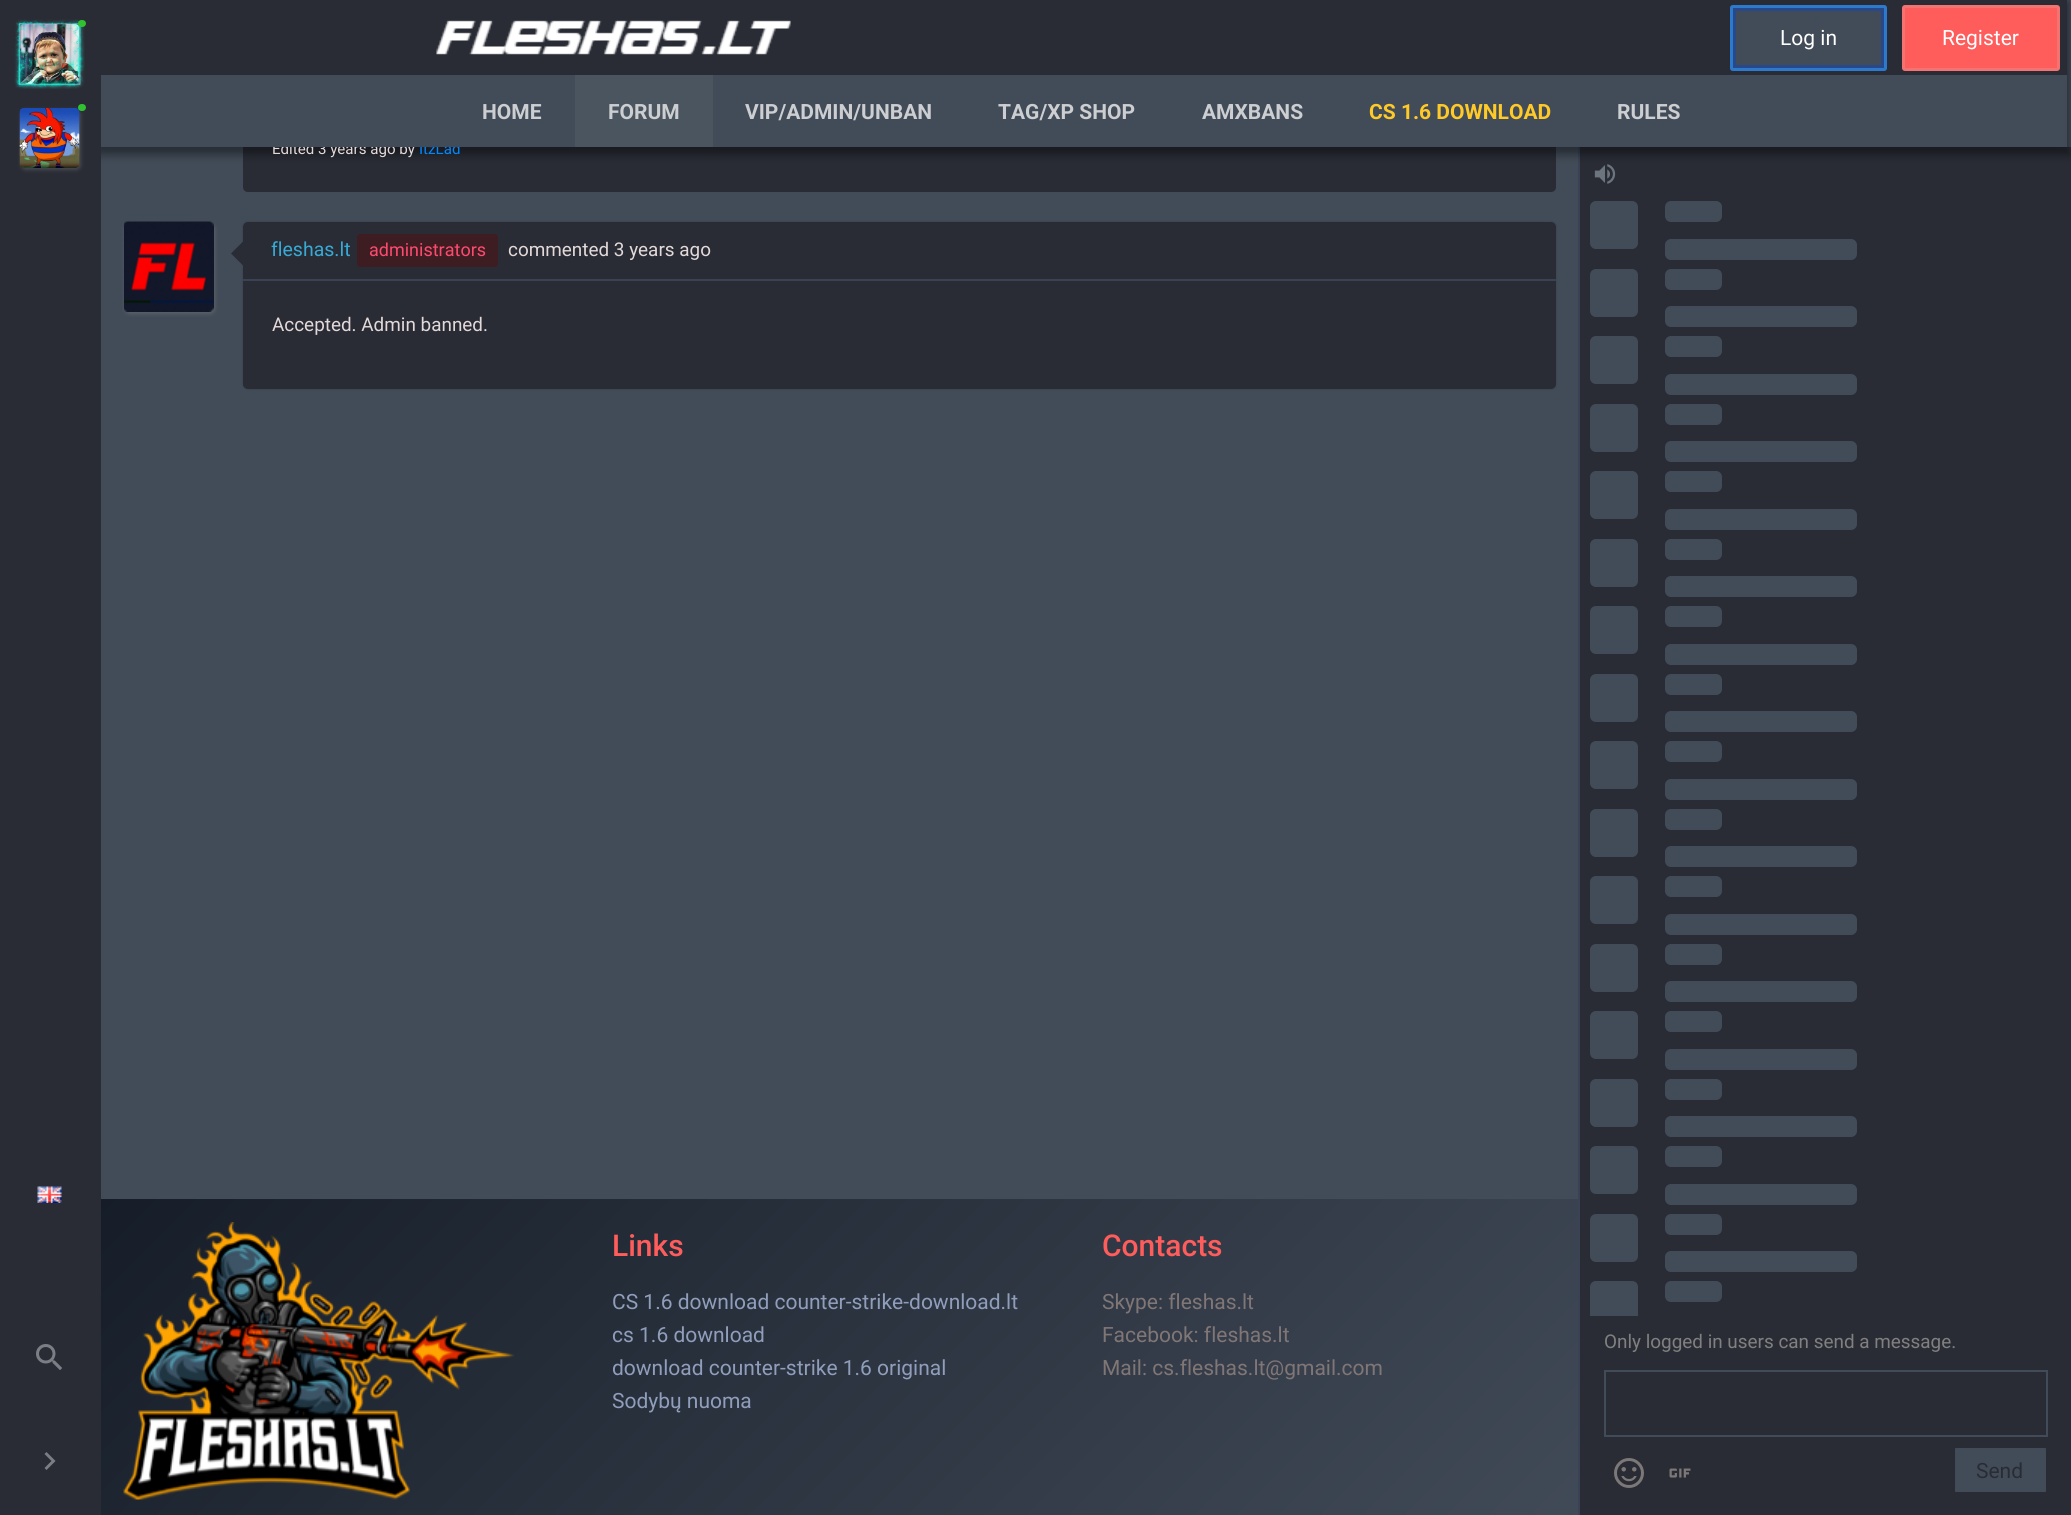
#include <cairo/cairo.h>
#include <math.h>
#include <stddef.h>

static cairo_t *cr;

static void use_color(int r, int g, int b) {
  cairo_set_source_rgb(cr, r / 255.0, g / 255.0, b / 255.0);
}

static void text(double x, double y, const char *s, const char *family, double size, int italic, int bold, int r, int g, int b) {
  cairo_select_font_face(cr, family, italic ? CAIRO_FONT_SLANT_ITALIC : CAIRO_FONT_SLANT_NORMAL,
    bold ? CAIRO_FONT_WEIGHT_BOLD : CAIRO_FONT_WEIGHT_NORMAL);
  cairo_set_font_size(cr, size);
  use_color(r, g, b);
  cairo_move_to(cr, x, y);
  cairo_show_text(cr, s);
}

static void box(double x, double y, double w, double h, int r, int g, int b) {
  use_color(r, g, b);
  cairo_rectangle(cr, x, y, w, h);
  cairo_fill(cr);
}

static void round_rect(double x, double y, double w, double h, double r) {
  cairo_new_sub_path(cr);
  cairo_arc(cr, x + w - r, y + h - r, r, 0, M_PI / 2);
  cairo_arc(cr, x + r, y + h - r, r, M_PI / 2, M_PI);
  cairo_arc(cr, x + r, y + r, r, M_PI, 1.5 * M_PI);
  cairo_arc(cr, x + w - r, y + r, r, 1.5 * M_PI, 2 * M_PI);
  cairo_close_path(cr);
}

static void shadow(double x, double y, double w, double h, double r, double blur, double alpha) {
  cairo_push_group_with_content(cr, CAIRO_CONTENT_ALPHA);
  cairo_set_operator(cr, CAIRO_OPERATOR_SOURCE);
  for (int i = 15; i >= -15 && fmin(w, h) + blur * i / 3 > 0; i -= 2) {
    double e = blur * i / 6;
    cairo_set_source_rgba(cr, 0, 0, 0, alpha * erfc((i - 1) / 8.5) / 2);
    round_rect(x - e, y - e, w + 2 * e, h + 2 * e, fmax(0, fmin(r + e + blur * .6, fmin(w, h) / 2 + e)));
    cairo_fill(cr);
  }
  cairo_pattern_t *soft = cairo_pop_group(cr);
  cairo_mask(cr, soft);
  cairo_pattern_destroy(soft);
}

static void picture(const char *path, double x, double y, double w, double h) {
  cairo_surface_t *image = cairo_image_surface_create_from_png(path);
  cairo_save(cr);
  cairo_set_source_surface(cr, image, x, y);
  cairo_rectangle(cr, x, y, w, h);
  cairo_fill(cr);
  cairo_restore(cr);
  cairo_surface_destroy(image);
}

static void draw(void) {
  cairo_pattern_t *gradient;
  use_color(66, 76, 88);
  cairo_paint(cr);
  use_color(41, 44, 53);
  cairo_new_path(cr);
  cairo_move_to(cr, 243, 147);
  cairo_line_to(cr, 1556, 147);
  cairo_line_to(cr, 1556, 187);
  cairo_curve_to(cr, 1556, 190, 1554, 192, 1551, 192);
  cairo_line_to(cr, 248, 192);
  cairo_curve_to(cr, 245, 192, 243, 190, 243, 187);
  cairo_close_path(cr);
  cairo_fill(cr);
  box(1580, 147, 491, 1368, 41, 44, 53);
  box(1578, 147, 2, 1368, 57, 67, 85);
  picture("img_09.png", 1594, 164, 22, 20);
  cairo_save(cr);
  cairo_set_fill_rule(cr, CAIRO_FILL_RULE_EVEN_ODD);
  cairo_new_path(cr);
  cairo_move_to(cr, 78, 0);
  cairo_line_to(cr, 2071, 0);
  cairo_line_to(cr, 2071, 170);
  cairo_line_to(cr, 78, 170);
  cairo_close_path(cr);
  cairo_move_to(cr, 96, 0);
  cairo_line_to(cr, 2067, 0);
  cairo_line_to(cr, 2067, 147);
  cairo_line_to(cr, 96, 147);
  cairo_close_path(cr);
  cairo_clip(cr);
  use_color(0, 0, 0);
  shadow(93, 2, 1977, 153, 0, 4.5, 0.4);
  cairo_restore(cr);
  box(0, 0, 101, 1515, 41, 44, 53);
  use_color(139, 139, 139);
  shadow(21, 26, 60, 60, 5, 2, 0.32);
  picture("img_02.png", 19, 24, 61, 60);
  picture("img_01.png", 14, 19, 71, 70);
  use_color(48, 194, 48);
  round_rect(78, 20, 8, 7, 3.5);
  cairo_fill(cr);
  use_color(139, 139, 139);
  shadow(21, 110, 60, 60, 5, 2, 0.32);
  picture("img_03.png", 19, 108, 61, 60);
  use_color(48, 194, 48);
  round_rect(78, 104, 8, 7, 3.5);
  cairo_fill(cr);
  picture("img_04.png", 37, 1186, 25, 17);
  picture("img_05.png", 36, 1344, 26, 26);
  use_color(123, 127, 133);
  cairo_new_path(cr);
  cairo_move_to(cr, 44.5, 1468);
  cairo_line_to(cr, 51.5, 1461);
  cairo_line_to(cr, 44.5, 1454);
  cairo_line_to(cr, 46.5, 1452);
  cairo_line_to(cr, 55.5, 1461);
  cairo_line_to(cr, 46.5, 1470);
  cairo_close_path(cr);
  cairo_fill(cr);
  box(101, 0, 1966, 75, 41, 44, 53);
  picture("img_06.png", 436, 20, 355, 35);
  use_color(66, 76, 88);
  round_rect(1730, 5, 157, 66, 3);
  cairo_fill(cr);
  cairo_rectangle(cr, 1734.5, 9.5, 148, 57);
  use_color(39, 72, 138);
  cairo_set_line_width(cr, 3);
  cairo_stroke(cr);
  round_rect(1731.5, 6.5, 154, 63, 1.5);
  use_color(45, 121, 204);
  cairo_stroke(cr);
  use_color(255, 92, 92);
  round_rect(1903.5, 6.5, 155, 63, 1.5);
  cairo_fill_preserve(cr);
  use_color(243, 114, 114);
  cairo_stroke(cr);
  box(575, 75, 138, 72, 75, 85, 96);
  use_color(139, 139, 139);
  shadow(125, 224, 90, 90, 5, 2, 0.32);
  picture("img_07.png", 124, 221, 90, 91);
  use_color(0, 0, 0);
  shadow(243, 222, 1313, 167, 5, 1, 0.2);
  use_color(41, 44, 53);
  round_rect(243, 222, 1313, 167, 5);
  cairo_fill(cr);
  box(243, 279, 1313, 2, 57, 67, 85);
  use_color(41, 44, 53);
  cairo_new_path(cr);
  cairo_move_to(cr, 243, 241.5);
  cairo_line_to(cr, 243, 265.5);
  cairo_line_to(cr, 231, 253.5);
  cairo_close_path(cr);
  cairo_fill(cr);
  use_color(61, 29, 34);
  round_rect(357, 234, 141, 33, 3);
  cairo_fill(cr);
  gradient = cairo_pattern_create_linear(1303, 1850, 376, 923);
  cairo_pattern_add_color_stop_rgba(gradient, 0, 0.259, 0.298, 0.345, 1);
  cairo_pattern_add_color_stop_rgba(gradient, 1, 0.086, 0.114, 0.161, 1);
  cairo_set_source(cr, gradient);
  cairo_pattern_destroy(gradient);
  cairo_rectangle(cr, 101, 1199, 1477, 316);
  cairo_fill(cr);
  picture("img_08.png", 123, 1222, 391, 278);
  use_color(66, 76, 88);
  round_rect(1590, 201, 48, 48, 6);
  cairo_fill(cr);
  round_rect(1665, 201, 57, 21, 6);
  cairo_fill(cr);
  round_rect(1665, 239, 192, 21, 6);
  cairo_fill(cr);
  round_rect(1590, 269, 48, 48, 6);
  cairo_fill(cr);
  round_rect(1665, 269, 57, 21, 6);
  cairo_fill(cr);
  round_rect(1665, 306, 192, 21, 6);
  cairo_fill(cr);
  round_rect(1590, 336, 48, 48, 6);
  cairo_fill(cr);
  round_rect(1665, 336, 57, 21, 6);
  cairo_fill(cr);
  round_rect(1665, 374, 192, 21, 6);
  cairo_fill(cr);
  round_rect(1590, 404, 48, 48, 6);
  cairo_fill(cr);
  round_rect(1665, 404, 57, 21, 6);
  cairo_fill(cr);
  round_rect(1665, 441, 192, 21, 6);
  cairo_fill(cr);
  round_rect(1590, 471, 48, 48, 6);
  cairo_fill(cr);
  round_rect(1665, 471, 57, 21, 6);
  cairo_fill(cr);
  round_rect(1665, 509, 192, 21, 6);
  cairo_fill(cr);
  round_rect(1590, 539, 48, 48, 6);
  cairo_fill(cr);
  round_rect(1665, 539, 57, 21, 6);
  cairo_fill(cr);
  round_rect(1665, 576, 192, 21, 6);
  cairo_fill(cr);
  round_rect(1590, 606, 48, 48, 6);
  cairo_fill(cr);
  round_rect(1665, 606, 57, 21, 6);
  cairo_fill(cr);
  round_rect(1665, 644, 192, 21, 6);
  cairo_fill(cr);
  round_rect(1590, 674, 48, 48, 6);
  cairo_fill(cr);
  round_rect(1665, 674, 57, 21, 6);
  cairo_fill(cr);
  round_rect(1665, 711, 192, 21, 6);
  cairo_fill(cr);
  round_rect(1590, 741, 48, 48, 6);
  cairo_fill(cr);
  round_rect(1665, 741, 57, 21, 6);
  cairo_fill(cr);
  round_rect(1665, 779, 192, 21, 6);
  cairo_fill(cr);
  round_rect(1590, 809, 48, 48, 6);
  cairo_fill(cr);
  round_rect(1665, 809, 57, 21, 6);
  cairo_fill(cr);
  round_rect(1665, 846, 192, 21, 6);
  cairo_fill(cr);
  round_rect(1590, 876, 48, 48, 6);
  cairo_fill(cr);
  round_rect(1665, 876, 57, 21, 6);
  cairo_fill(cr);
  round_rect(1665, 914, 192, 21, 6);
  cairo_fill(cr);
  round_rect(1590, 944, 48, 48, 6);
  cairo_fill(cr);
  round_rect(1665, 944, 57, 21, 6);
  cairo_fill(cr);
  round_rect(1665, 981, 192, 21, 6);
  cairo_fill(cr);
  round_rect(1590, 1011, 48, 48, 6);
  cairo_fill(cr);
  round_rect(1665, 1011, 57, 21, 6);
  cairo_fill(cr);
  round_rect(1665, 1049, 192, 21, 6);
  cairo_fill(cr);
  round_rect(1590, 1079, 48, 48, 6);
  cairo_fill(cr);
  round_rect(1665, 1079, 57, 21, 6);
  cairo_fill(cr);
  round_rect(1665, 1116, 192, 21, 6);
  cairo_fill(cr);
  round_rect(1590, 1146, 48, 48, 6);
  cairo_fill(cr);
  round_rect(1665, 1146, 57, 21, 6);
  cairo_fill(cr);
  round_rect(1665, 1184, 192, 21, 6);
  cairo_fill(cr);
  round_rect(1590, 1214, 48, 48, 6);
  cairo_fill(cr);
  round_rect(1665, 1214, 57, 21, 6);
  cairo_fill(cr);
  round_rect(1665, 1251, 192, 21, 6);
  cairo_fill(cr);
  cairo_new_path(cr);
  cairo_move_to(cr, 1596, 1281);
  cairo_line_to(cr, 1632, 1281);
  cairo_curve_to(cr, 1635.5, 1281, 1638, 1283.5, 1638, 1287);
  cairo_line_to(cr, 1638, 1316);
  cairo_line_to(cr, 1590, 1316);
  cairo_line_to(cr, 1590, 1287);
  cairo_curve_to(cr, 1590, 1283.5, 1592.5, 1281, 1596, 1281);
  cairo_close_path(cr);
  cairo_fill(cr);
  round_rect(1665, 1281, 57, 21, 6);
  cairo_fill(cr);
  cairo_rectangle(cr, 1605, 1371, 442, 65);
  cairo_set_line_width(cr, 2);
  cairo_stroke(cr);
  picture("img_10.png", 1614, 1458, 30, 30);
  picture("img_11.png", 1669, 1468, 22, 10);
  round_rect(1954, 1447, 93, 46, 2);
  cairo_fill_preserve(cr);
  use_color(41, 44, 53);
  cairo_stroke(cr);
  text(1780, 45, "Log in", "Roboto", 21, 0, 0, 255, 255, 255);
  text(1942, 45, "Register", "Roboto", 21, 0, 0, 255, 255, 255);
  text(482, 119, "HOME", "Roboto", 21, 0, 1, 204, 206, 209);
  text(608, 119, "FORUM", "Roboto", 21, 0, 1, 204, 206, 209);
  text(745, 119, "VIP/ADMIN/UNBAN", "Roboto", 21, 0, 1, 204, 206, 209);
  text(998, 119, "TAG/XP SHOP", "Roboto", 21, 0, 1, 204, 206, 209);
  text(1202, 119, "AMXBANS", "Roboto", 21, 0, 1, 204, 206, 209);
  text(1369, 119, "CS 1.6 DOWNLOAD", "Roboto", 21, 0, 1, 255, 202, 40);
  text(1617, 119, "RULES", "Roboto", 21, 0, 1, 204, 206, 209);
  cairo_save(cr);
  cairo_rectangle(cr, 101, 147, 1477, 1368);
  cairo_clip(cr);
  text(272, 154, "Edited 3 years ago by", "Roboto", 15.1, 0, 0, 228, 217, 217);
  text(419, 154, "ItzLad", "Roboto", 15.1, 0, 0, 0, 137, 255);
  cairo_restore(cr);
  text(271, 256, "fleshas.lt", "Roboto", 19.5, 0, 0, 55, 170, 213);
  text(369, 256, "administrators", "Roboto", 18, 0, 0, 255, 74, 110);
  text(508, 256, "commented 3 years ago", "Roboto", 18.9, 0, 0, 228, 217, 217);
  text(272, 331, "Accepted. Admin banned.", "Roboto", 18.9, 0, 0, 228, 217, 217);
  text(612, 1256, "Links", "Roboto Medium", 30, 0, 0, 255, 92, 92);
  text(612, 1309, "CS 1.6 download counter-strike-download.lt", "Roboto", 21, 0, 0, 144, 158, 187);
  text(612, 1342, "cs 1.6 download", "Roboto", 21, 0, 0, 144, 158, 187);
  text(612, 1375, "download counter-strike 1.6 original", "Roboto", 21, 0, 0, 144, 158, 187);
  text(612, 1408, "Sodybų nuoma", "Roboto", 21, 0, 0, 144, 158, 187);
  text(1102, 1256, "Contacts", "Roboto Medium", 30, 0, 0, 255, 92, 92);
  text(1102, 1309, "Skype: fleshas.lt", "Roboto", 21, 0, 0, 128, 118, 118);
  text(1102, 1342, "Facebook: fleshas.lt", "Roboto", 21, 0, 0, 128, 118, 118);
  text(1102, 1375, "Mail: cs.fleshas.lt@gmail.com", "Roboto", 21, 0, 0, 128, 118, 118);
  text(1604, 1348, "Only logged in users can send a message.", "Roboto", 18.9, 0, 0, 128, 128, 128);
  text(1976, 1478, "Send", "Roboto", 21, 0, 0, 41, 44, 53);
}

int main(void) {
  cairo_surface_t *surface = cairo_image_surface_create(CAIRO_FORMAT_RGB24, 2071, 1515);
  cr = cairo_create(surface);
  cairo_font_options_t *options = cairo_font_options_create();
  cairo_font_options_set_hint_metrics(options, CAIRO_HINT_METRICS_OFF);
  cairo_font_options_set_hint_style(options, CAIRO_HINT_STYLE_NONE);
  cairo_set_font_options(cr, options);
  cairo_set_miter_limit(cr, 4);
  draw();
  cairo_surface_write_to_png(surface, "out.png");
  cairo_font_options_destroy(options);
  cairo_destroy(cr);
  cairo_surface_destroy(surface);
  return 0;
}
